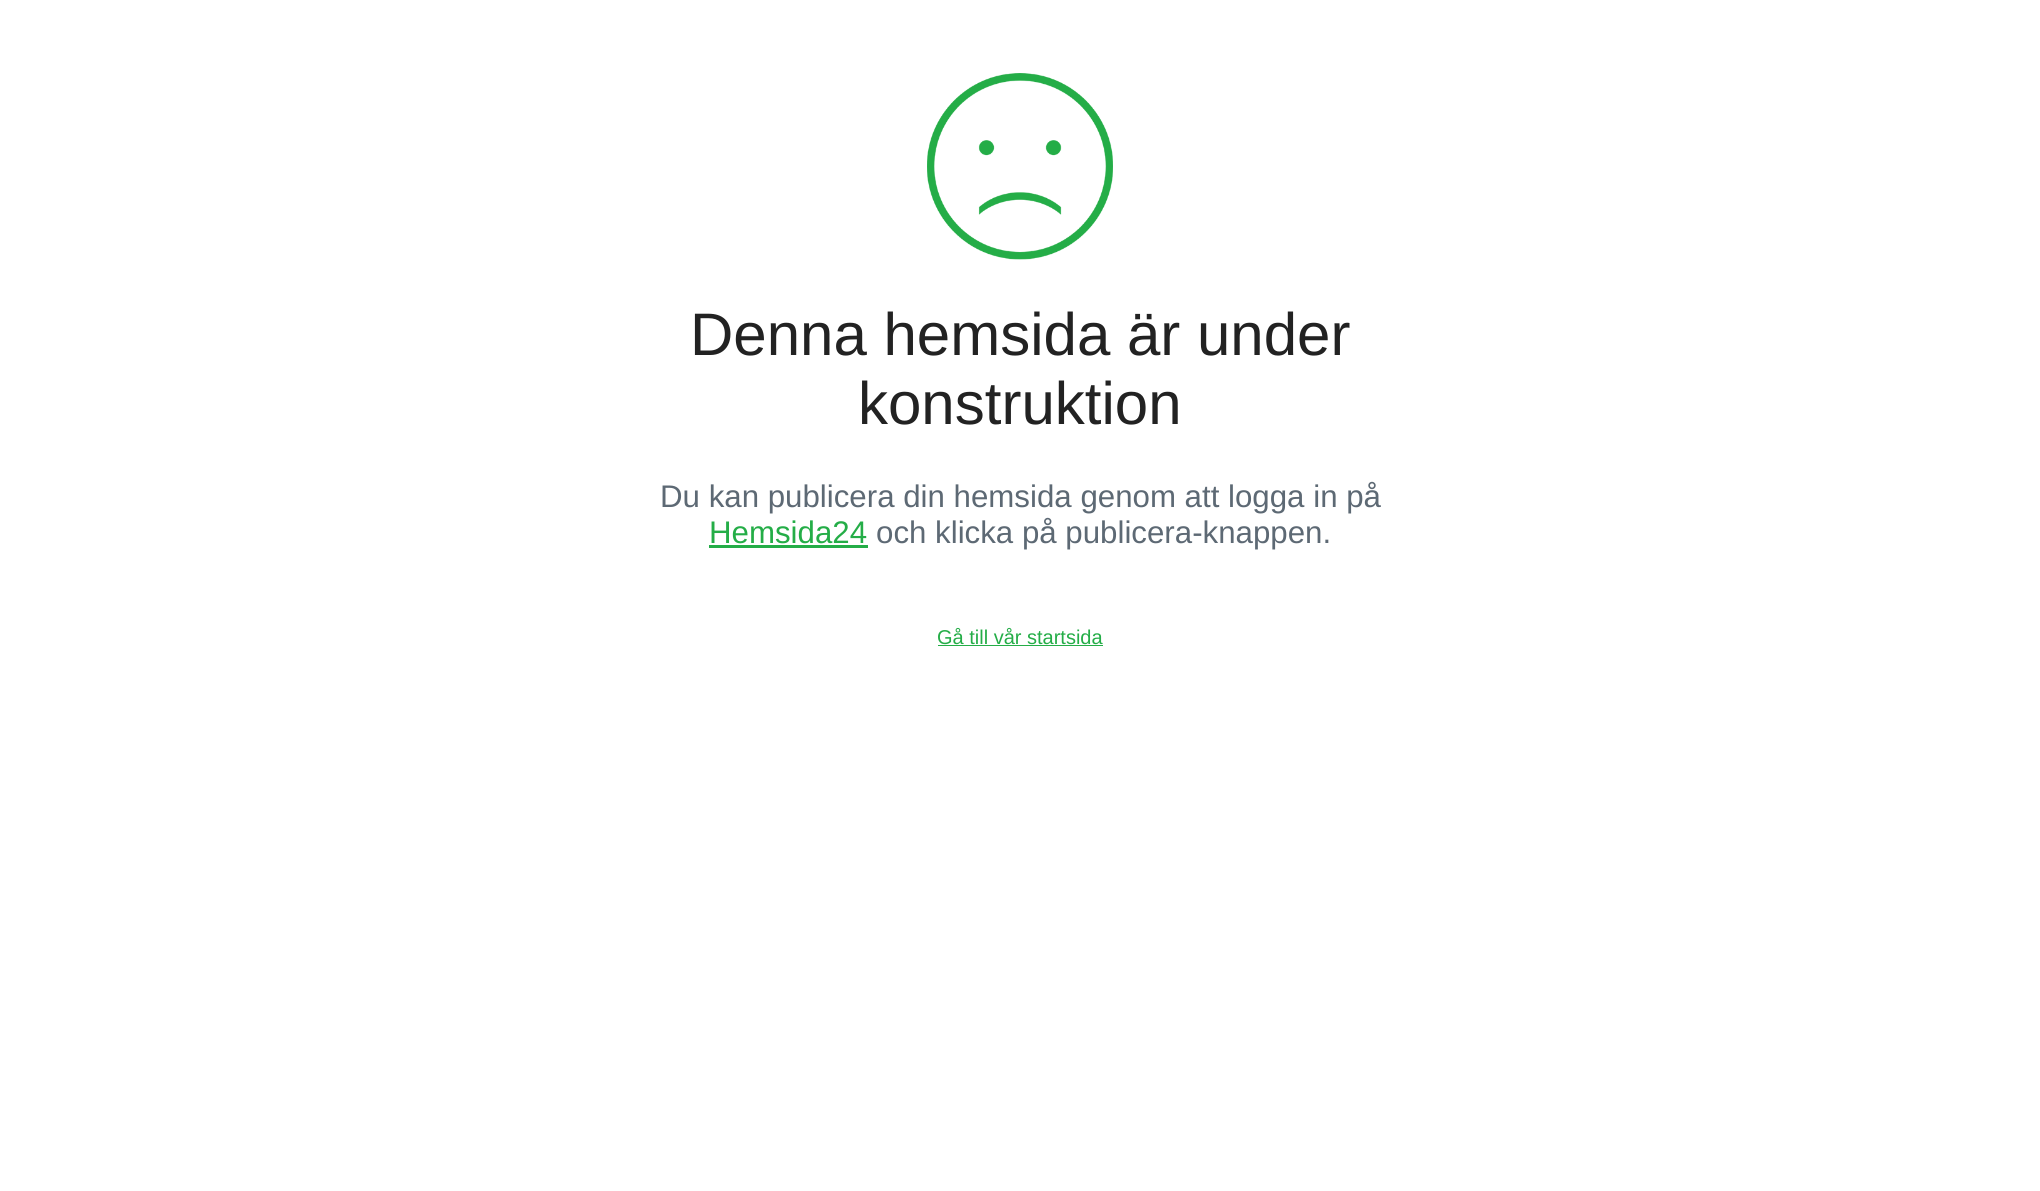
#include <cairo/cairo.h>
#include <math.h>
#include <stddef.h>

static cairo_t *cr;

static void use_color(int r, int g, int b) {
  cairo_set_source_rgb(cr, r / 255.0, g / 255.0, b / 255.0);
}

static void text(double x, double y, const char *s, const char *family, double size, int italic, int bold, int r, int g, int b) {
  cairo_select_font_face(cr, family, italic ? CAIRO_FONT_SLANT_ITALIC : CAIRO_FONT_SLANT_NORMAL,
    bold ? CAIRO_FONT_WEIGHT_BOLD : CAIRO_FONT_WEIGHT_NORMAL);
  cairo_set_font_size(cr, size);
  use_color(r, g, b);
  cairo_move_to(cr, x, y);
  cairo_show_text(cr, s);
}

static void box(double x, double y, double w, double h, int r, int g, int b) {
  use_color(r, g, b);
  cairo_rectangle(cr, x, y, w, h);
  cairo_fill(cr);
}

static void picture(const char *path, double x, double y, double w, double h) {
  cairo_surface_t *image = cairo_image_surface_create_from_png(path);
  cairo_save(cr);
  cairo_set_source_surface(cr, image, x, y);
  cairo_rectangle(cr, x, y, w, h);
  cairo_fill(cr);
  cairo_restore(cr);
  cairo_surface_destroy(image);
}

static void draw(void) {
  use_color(255, 255, 255);
  cairo_paint(cr);
  picture("img_01.png", 927, 73, 186, 187);
  box(709, 545, 159, 3, 36, 173, 71);
  box(938, 645, 165, 1, 36, 173, 71);
  text(690, 355, "Denna hemsida är under", "Liberation Sans", 60, 0, 0, 34, 34, 34);
  text(858, 424, "konstruktion", "Liberation Sans", 60, 0, 0, 34, 34, 34);
  text(660, 507, "Du kan publicera din hemsida genom att logga in på", "Liberation Sans", 31.25, 0, 0, 93, 105, 116);
  text(709, 543, "Hemsida24", "Liberation Sans", 31.25, 0, 0, 36, 173, 71);
  text(876, 543, "och klicka på publicera-knappen.", "Liberation Sans", 31.25, 0, 0, 93, 105, 116);
  text(937, 644, "Gå till vår startsida", "Liberation Sans", 20, 0, 0, 36, 173, 71);
}

int main(void) {
  cairo_surface_t *surface = cairo_image_surface_create(CAIRO_FORMAT_RGB24, 2040, 1191);
  cr = cairo_create(surface);
  cairo_font_options_t *options = cairo_font_options_create();
  cairo_font_options_set_hint_metrics(options, CAIRO_HINT_METRICS_OFF);
  cairo_font_options_set_hint_style(options, CAIRO_HINT_STYLE_NONE);
  cairo_set_font_options(cr, options);
  cairo_set_miter_limit(cr, 4);
  draw();
  cairo_surface_write_to_png(surface, "out.png");
  cairo_font_options_destroy(options);
  cairo_destroy(cr);
  cairo_surface_destroy(surface);
  return 0;
}
